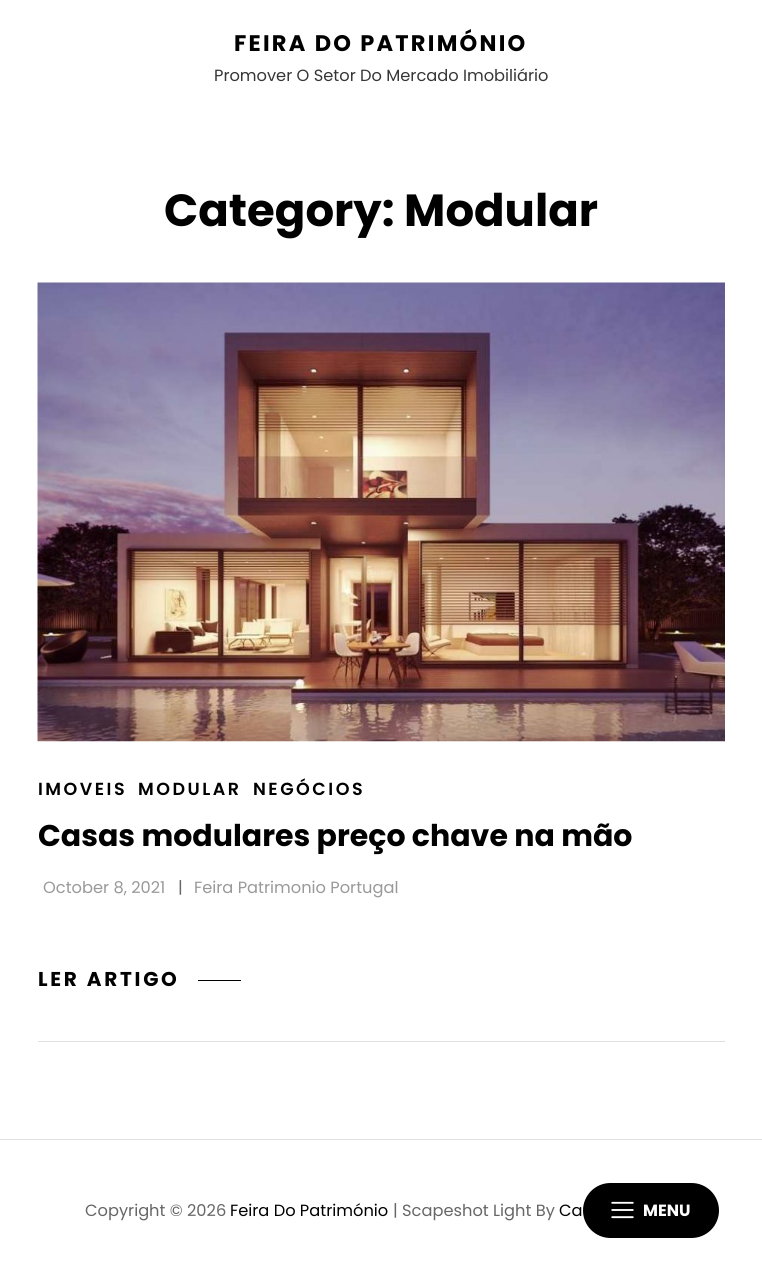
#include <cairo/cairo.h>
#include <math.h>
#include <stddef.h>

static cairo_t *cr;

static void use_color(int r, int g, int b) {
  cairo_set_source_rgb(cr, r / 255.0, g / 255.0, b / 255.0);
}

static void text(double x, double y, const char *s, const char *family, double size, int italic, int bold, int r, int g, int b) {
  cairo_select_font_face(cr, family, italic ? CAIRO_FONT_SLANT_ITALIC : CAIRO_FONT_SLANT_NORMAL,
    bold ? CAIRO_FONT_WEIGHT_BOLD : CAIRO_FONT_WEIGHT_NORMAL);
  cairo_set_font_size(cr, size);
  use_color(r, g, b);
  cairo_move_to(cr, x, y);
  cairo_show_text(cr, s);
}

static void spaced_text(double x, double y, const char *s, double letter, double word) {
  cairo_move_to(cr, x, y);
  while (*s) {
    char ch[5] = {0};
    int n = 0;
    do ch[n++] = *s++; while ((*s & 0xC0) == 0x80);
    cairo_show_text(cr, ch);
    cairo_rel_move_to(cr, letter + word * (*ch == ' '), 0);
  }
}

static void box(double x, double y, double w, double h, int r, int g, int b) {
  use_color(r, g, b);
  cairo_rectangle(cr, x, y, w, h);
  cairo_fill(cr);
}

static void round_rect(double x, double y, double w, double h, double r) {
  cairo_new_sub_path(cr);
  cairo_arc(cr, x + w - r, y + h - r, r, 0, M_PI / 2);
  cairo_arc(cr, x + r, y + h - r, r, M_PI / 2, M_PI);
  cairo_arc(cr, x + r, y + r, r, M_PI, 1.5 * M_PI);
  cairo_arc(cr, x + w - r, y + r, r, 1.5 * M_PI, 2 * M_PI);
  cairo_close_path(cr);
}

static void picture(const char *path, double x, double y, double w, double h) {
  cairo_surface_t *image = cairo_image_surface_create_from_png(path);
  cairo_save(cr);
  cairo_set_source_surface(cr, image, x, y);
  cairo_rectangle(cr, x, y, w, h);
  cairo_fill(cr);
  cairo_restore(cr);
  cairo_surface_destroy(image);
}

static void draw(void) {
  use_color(255, 255, 255);
  cairo_paint(cr);
  use_color(0, 0, 0);
  round_rect(583, 1183, 136, 55, 27.5);
  cairo_fill(cr);
  picture("img_01.png", 611, 1201, 23, 18);
  box(38, 1041, 687, 1, 223, 223, 223);
  picture("img_02.png", 37, 282, 688, 460);
  box(198, 980, 43, 1, 0, 0, 0);
  box(0, 1139, 762, 1, 223, 223, 223);
  cairo_select_font_face(cr, "Poppins", CAIRO_FONT_SLANT_NORMAL, CAIRO_FONT_WEIGHT_BOLD);
  cairo_set_font_size(cr, 22.5);
  use_color(0, 0, 0);
  spaced_text(234, 51, "FEIRA DO PATRIMÓNIO", 2.25, 0);
  text(214, 81, "Promover O Setor Do Mercado Imobiliário", "Poppins", 16.25, 0, 0, 54, 54, 54);
  text(643, 1216, "MENU", "Poppins", 16.25, 0, 1, 255, 255, 255);
  text(164, 226, "Category: Modular", "Poppins", 45, 0, 1, 0, 0, 0);
  cairo_select_font_face(cr, "Poppins SemiBold", CAIRO_FONT_SLANT_NORMAL, CAIRO_FONT_WEIGHT_NORMAL);
  cairo_set_font_size(cr, 17.5);
  spaced_text(38, 795, "IMOVEIS", 2.5, 0);
  spaced_text(138, 795, "MODULAR", 2.5, 0);
  spaced_text(253, 795, "NEGÓCIOS", 2.5, 0);
  text(38, 846, "Casas modulares preço chave na mão", "Poppins", 30, 0, 1, 0, 0, 0);
  text(43, 893, "October 8, 2021", "Poppins", 16.25, 0, 0, 153, 153, 153);
  text(178, 893, "|", "Poppins", 16.25, 0, 0, 102, 102, 102);
  text(194, 893, "Feira Patrimonio Portugal", "Poppins", 16.25, 0, 0, 153, 153, 153);
  cairo_select_font_face(cr, "Poppins", CAIRO_FONT_SLANT_NORMAL, CAIRO_FONT_WEIGHT_BOLD);
  cairo_set_font_size(cr, 20);
  use_color(0, 0, 0);
  spaced_text(38, 986, "LER ARTIGO", 2.75, 0);
  text(85, 1216, "Copyright © 2026", "Poppins", 16.25, 0, 0, 102, 102, 102);
  text(230, 1216, "Feira Do Património", "Poppins", 16.25, 0, 0, 0, 0, 0);
  text(393, 1216, "| Scapeshot Light By", "Poppins", 16.25, 0, 0, 102, 102, 102);
  text(559, 1216, "Ca", "Poppins", 16.25, 0, 0, 0, 0, 0);
}

int main(void) {
  cairo_surface_t *surface = cairo_image_surface_create(CAIRO_FORMAT_RGB24, 762, 1281);
  cr = cairo_create(surface);
  cairo_font_options_t *options = cairo_font_options_create();
  cairo_font_options_set_hint_metrics(options, CAIRO_HINT_METRICS_OFF);
  cairo_font_options_set_hint_style(options, CAIRO_HINT_STYLE_NONE);
  cairo_set_font_options(cr, options);
  cairo_set_miter_limit(cr, 4);
  draw();
  cairo_surface_write_to_png(surface, "out.png");
  cairo_font_options_destroy(options);
  cairo_destroy(cr);
  cairo_surface_destroy(surface);
  return 0;
}
